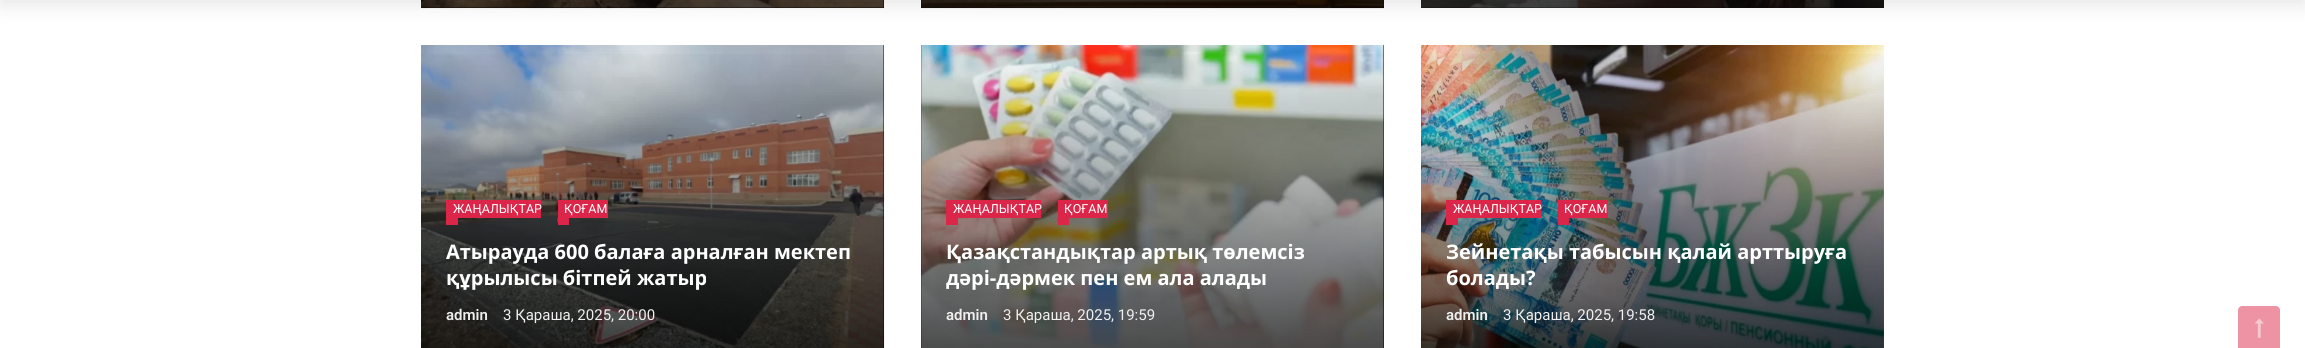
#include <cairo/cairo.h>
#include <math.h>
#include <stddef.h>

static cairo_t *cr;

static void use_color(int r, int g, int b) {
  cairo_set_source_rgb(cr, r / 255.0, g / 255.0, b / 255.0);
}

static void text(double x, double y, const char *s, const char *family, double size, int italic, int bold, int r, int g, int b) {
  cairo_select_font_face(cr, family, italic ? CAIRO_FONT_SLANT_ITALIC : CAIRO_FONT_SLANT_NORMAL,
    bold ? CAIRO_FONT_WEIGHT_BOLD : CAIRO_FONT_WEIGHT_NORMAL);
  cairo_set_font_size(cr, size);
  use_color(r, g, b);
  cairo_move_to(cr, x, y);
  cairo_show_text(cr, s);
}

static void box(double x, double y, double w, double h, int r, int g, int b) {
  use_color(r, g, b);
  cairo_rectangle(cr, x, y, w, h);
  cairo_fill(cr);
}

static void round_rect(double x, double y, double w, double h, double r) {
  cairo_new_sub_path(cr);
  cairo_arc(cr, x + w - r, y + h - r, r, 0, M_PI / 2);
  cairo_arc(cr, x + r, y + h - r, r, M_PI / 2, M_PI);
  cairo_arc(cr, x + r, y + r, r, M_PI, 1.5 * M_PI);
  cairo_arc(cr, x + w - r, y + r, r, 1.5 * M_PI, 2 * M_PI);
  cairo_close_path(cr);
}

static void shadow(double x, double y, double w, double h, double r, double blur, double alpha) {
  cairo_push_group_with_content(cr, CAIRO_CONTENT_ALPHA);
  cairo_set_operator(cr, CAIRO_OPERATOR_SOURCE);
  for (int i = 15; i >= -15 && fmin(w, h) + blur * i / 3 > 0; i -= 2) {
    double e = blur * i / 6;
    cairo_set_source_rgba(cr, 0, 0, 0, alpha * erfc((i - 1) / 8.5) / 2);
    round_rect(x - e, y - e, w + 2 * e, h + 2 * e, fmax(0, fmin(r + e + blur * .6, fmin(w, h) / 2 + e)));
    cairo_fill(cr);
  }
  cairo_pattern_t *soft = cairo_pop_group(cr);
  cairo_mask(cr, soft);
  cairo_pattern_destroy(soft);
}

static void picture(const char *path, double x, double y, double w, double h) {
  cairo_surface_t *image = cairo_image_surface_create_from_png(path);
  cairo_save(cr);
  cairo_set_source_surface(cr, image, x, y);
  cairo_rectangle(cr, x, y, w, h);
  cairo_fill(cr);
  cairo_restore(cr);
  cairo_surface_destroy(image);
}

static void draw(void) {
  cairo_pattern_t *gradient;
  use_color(255, 255, 255);
  cairo_paint(cr);
  box(421, 0, 463, 8, 34, 34, 34);
  picture("img_01.png", 421, 0, 464, 9);
  gradient = cairo_pattern_create_linear(653, -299, 653, 7.5);
  cairo_pattern_add_color_stop_rgba(gradient, 0, 0, 0, 0, 0);
  cairo_pattern_add_color_stop_rgba(gradient, 1, 0, 0, 0, 0.7);
  cairo_set_source(cr, gradient);
  cairo_pattern_destroy(gradient);
  cairo_rectangle(cr, 421, 0, 463, 8);
  cairo_fill(cr);
  box(921, 0, 463, 8, 34, 34, 34);
  picture("img_02.png", 921, 0, 463, 9);
  gradient = cairo_pattern_create_linear(1153, -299, 1153, 7.5);
  cairo_pattern_add_color_stop_rgba(gradient, 0, 0, 0, 0, 0);
  cairo_pattern_add_color_stop_rgba(gradient, 1, 0, 0, 0, 0.7);
  cairo_set_source(cr, gradient);
  cairo_pattern_destroy(gradient);
  cairo_rectangle(cr, 921, 0, 463, 8);
  cairo_fill(cr);
  box(1421, 0, 463, 8, 34, 34, 34);
  picture("img_03.png", 1421, 0, 463, 8);
  gradient = cairo_pattern_create_linear(1653, -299, 1653, 7.5);
  cairo_pattern_add_color_stop_rgba(gradient, 0, 0, 0, 0, 0);
  cairo_pattern_add_color_stop_rgba(gradient, 1, 0, 0, 0, 0.7);
  cairo_set_source(cr, gradient);
  cairo_pattern_destroy(gradient);
  cairo_rectangle(cr, 1421, 0, 463, 8);
  cairo_fill(cr);
  use_color(0, 0, 0);
  shadow(0, -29, 2305, 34, 0, 9.5, 0.1);
  box(883, 45, 1, 303, 34, 34, 34);
  picture("img_04.png", 421, 45, 464, 303);
  gradient = cairo_pattern_create_linear(653, 45, 653, 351);
  cairo_pattern_add_color_stop_rgba(gradient, 0, 0, 0, 0, 0);
  cairo_pattern_add_color_stop_rgba(gradient, 1, 0, 0, 0, 0.7);
  cairo_set_source(cr, gradient);
  cairo_pattern_destroy(gradient);
  cairo_rectangle(cr, 421, 54, 463, 294);
  cairo_fill(cr);
  box(446, 200, 95, 18, 219, 38, 73);
  box(446, 218, 12, 7, 219, 38, 73);
  box(558, 200, 50, 18, 219, 38, 73);
  box(558, 218, 11, 7, 219, 38, 73);
  cairo_new_path(cr);
  cairo_move_to(cr, 557.5, 222.5);
  cairo_line_to(cr, 557.5, 217.5);
  cairo_line_to(cr, 562.5, 217.5);
  cairo_close_path(cr);
  cairo_fill(cr);
  box(921, 45, 463, 303, 34, 34, 34);
  picture("img_05.png", 921, 45, 463, 303);
  gradient = cairo_pattern_create_linear(1153, 45, 1153, 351);
  cairo_pattern_add_color_stop_rgba(gradient, 0, 0, 0, 0, 0);
  cairo_pattern_add_color_stop_rgba(gradient, 1, 0, 0, 0, 0.7);
  cairo_set_source(cr, gradient);
  cairo_pattern_destroy(gradient);
  cairo_rectangle(cr, 921, 54, 463, 294);
  cairo_fill(cr);
  box(946, 200, 95, 18, 219, 38, 73);
  box(946, 218, 12, 7, 219, 38, 73);
  box(1058, 200, 50, 18, 219, 38, 73);
  box(1058, 218, 11, 7, 219, 38, 73);
  cairo_new_path(cr);
  cairo_move_to(cr, 1057.5, 222.5);
  cairo_line_to(cr, 1057.5, 217.5);
  cairo_line_to(cr, 1062.5, 217.5);
  cairo_close_path(cr);
  cairo_fill(cr);
  picture("img_06.png", 1421, 45, 463, 303);
  gradient = cairo_pattern_create_linear(1653, 45, 1653, 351);
  cairo_pattern_add_color_stop_rgba(gradient, 0, 0, 0, 0, 0);
  cairo_pattern_add_color_stop_rgba(gradient, 1, 0, 0, 0, 0.7);
  cairo_set_source(cr, gradient);
  cairo_pattern_destroy(gradient);
  cairo_rectangle(cr, 1421, 54, 463, 294);
  cairo_fill(cr);
  box(1446, 200, 95, 18, 219, 38, 73);
  box(1446, 218, 12, 7, 219, 38, 73);
  box(1558, 200, 50, 18, 219, 38, 73);
  box(1558, 218, 11, 7, 219, 38, 73);
  cairo_new_path(cr);
  cairo_move_to(cr, 1557.5, 222.5);
  cairo_line_to(cr, 1557.5, 217.5);
  cairo_line_to(cr, 1562.5, 217.5);
  cairo_close_path(cr);
  cairo_fill(cr);
  use_color(237, 147, 164);
  cairo_new_path(cr);
  cairo_move_to(cr, 2242, 306);
  cairo_line_to(cr, 2276, 306);
  cairo_curve_to(cr, 2278, 306, 2280, 308, 2280, 310);
  cairo_line_to(cr, 2280, 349);
  cairo_line_to(cr, 2238, 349);
  cairo_line_to(cr, 2238, 310);
  cairo_curve_to(cr, 2238, 308, 2240, 306, 2242, 306);
  cairo_close_path(cr);
  cairo_fill(cr);
  picture("img_07.png", 2255, 318, 9, 20);
  text(453, 213, "ЖАҢАЛЫҚТАР", "Roboto", 12.5, 0, 0, 255, 255, 255);
  text(564, 213, "ҚОҒАМ", "Roboto", 12.5, 0, 0, 255, 255, 255);
  text(446, 259, "Атырауда 600 балаға арналған мектеп", "Open Sans", 20, 0, 1, 255, 255, 255);
  text(446, 285, "құрылысы бітпей жатыр", "Open Sans", 20, 0, 1, 255, 255, 255);
  text(446, 320, "admin", "Roboto SemiBold", 15, 0, 0, 239, 239, 239);
  text(503, 320, "3 Қараша, 2025, 20:00", "Roboto", 15, 0, 0, 239, 239, 239);
  text(953, 213, "ЖАҢАЛЫҚТАР", "Roboto", 12.5, 0, 0, 255, 255, 255);
  text(1064, 213, "ҚОҒАМ", "Roboto", 12.5, 0, 0, 255, 255, 255);
  text(946, 259, "Қазақстандықтар артық төлемсіз", "Open Sans", 20, 0, 1, 255, 255, 255);
  text(946, 285, "дәрі-дәрмек пен ем ала алады", "Open Sans", 20, 0, 1, 255, 255, 255);
  text(946, 320, "admin", "Roboto SemiBold", 15, 0, 0, 239, 239, 239);
  text(1003, 320, "3 Қараша, 2025, 19:59", "Roboto", 15, 0, 0, 239, 239, 239);
  text(1453, 213, "ЖАҢАЛЫҚТАР", "Roboto", 12.5, 0, 0, 255, 255, 255);
  text(1564, 213, "ҚОҒАМ", "Roboto", 12.5, 0, 0, 255, 255, 255);
  text(1446, 259, "Зейнетақы табысын қалай арттыруға", "Open Sans", 20, 0, 1, 255, 255, 255);
  text(1446, 285, "болады?", "Open Sans", 20, 0, 1, 255, 255, 255);
  text(1446, 320, "admin", "Roboto SemiBold", 15, 0, 0, 239, 239, 239);
  text(1503, 320, "3 Қараша, 2025, 19:58", "Roboto", 15, 0, 0, 239, 239, 239);
}

int main(void) {
  cairo_surface_t *surface = cairo_image_surface_create(CAIRO_FORMAT_RGB24, 2305, 348);
  cr = cairo_create(surface);
  cairo_font_options_t *options = cairo_font_options_create();
  cairo_font_options_set_hint_metrics(options, CAIRO_HINT_METRICS_OFF);
  cairo_font_options_set_hint_style(options, CAIRO_HINT_STYLE_NONE);
  cairo_set_font_options(cr, options);
  cairo_set_miter_limit(cr, 4);
  draw();
  cairo_surface_write_to_png(surface, "out.png");
  cairo_font_options_destroy(options);
  cairo_destroy(cr);
  cairo_surface_destroy(surface);
  return 0;
}
